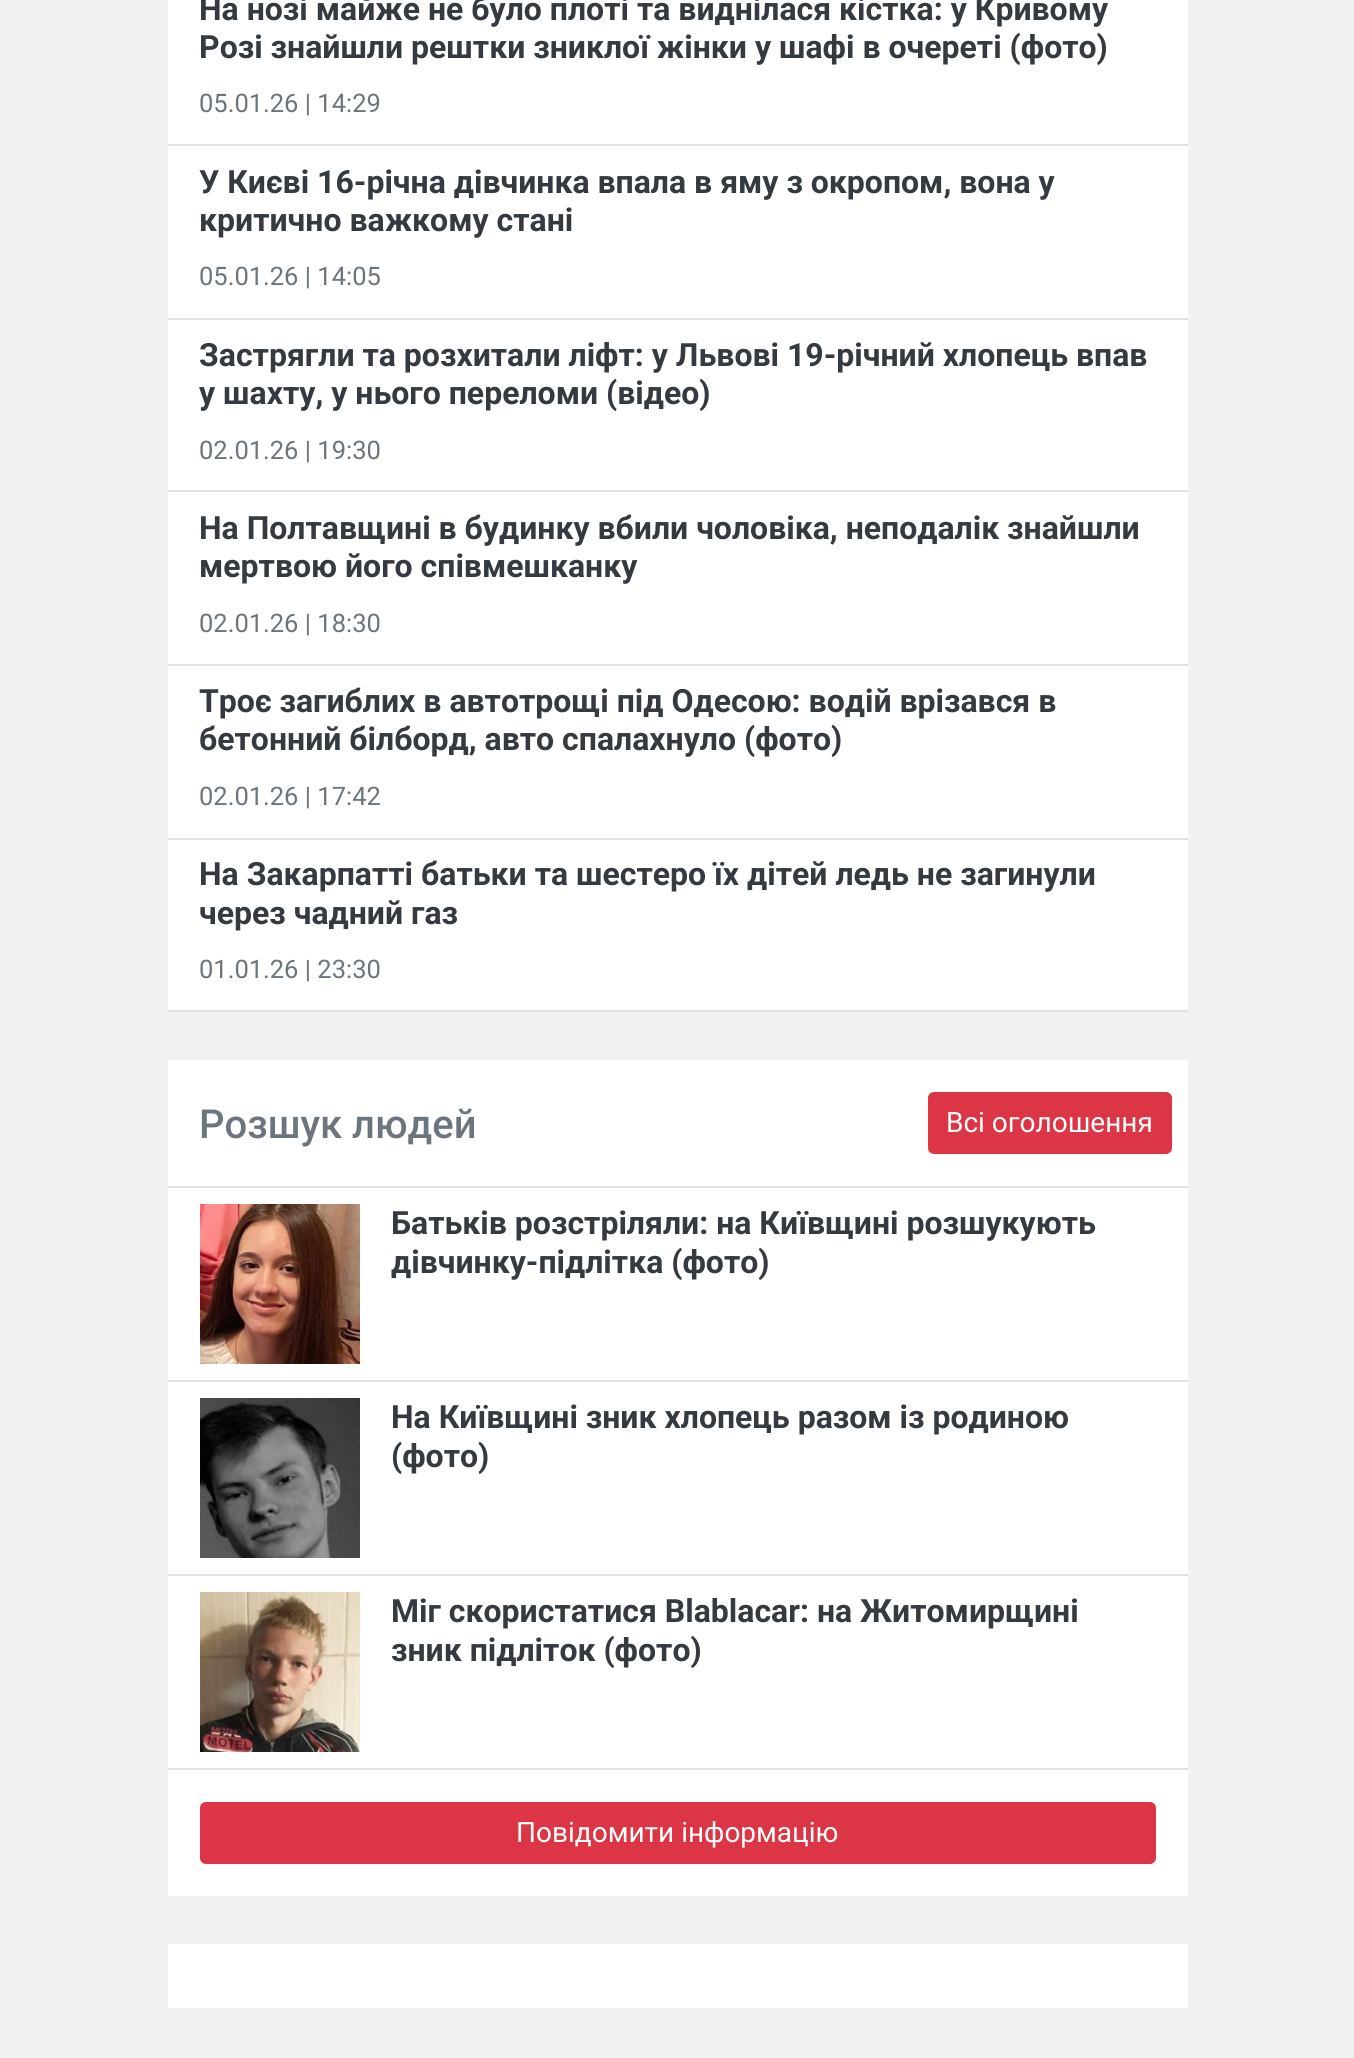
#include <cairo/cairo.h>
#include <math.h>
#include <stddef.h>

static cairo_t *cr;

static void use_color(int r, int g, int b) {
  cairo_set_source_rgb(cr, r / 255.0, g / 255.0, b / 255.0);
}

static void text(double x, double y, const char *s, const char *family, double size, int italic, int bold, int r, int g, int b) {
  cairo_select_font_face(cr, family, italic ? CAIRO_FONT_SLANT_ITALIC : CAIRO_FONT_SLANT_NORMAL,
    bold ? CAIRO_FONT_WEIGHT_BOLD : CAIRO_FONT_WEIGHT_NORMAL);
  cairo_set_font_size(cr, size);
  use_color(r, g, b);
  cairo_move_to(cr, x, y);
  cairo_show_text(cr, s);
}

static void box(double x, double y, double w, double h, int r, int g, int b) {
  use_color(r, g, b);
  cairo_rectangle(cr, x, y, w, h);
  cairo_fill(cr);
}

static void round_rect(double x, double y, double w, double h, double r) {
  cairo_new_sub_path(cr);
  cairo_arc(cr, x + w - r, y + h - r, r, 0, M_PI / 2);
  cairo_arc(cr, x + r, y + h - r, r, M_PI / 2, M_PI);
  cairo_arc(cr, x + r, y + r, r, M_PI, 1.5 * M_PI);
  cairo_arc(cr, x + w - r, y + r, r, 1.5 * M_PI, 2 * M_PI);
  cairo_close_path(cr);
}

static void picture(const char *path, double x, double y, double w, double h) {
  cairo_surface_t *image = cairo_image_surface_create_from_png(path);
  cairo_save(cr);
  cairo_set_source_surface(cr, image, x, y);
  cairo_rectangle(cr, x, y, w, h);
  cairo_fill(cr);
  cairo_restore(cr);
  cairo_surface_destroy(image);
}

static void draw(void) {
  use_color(241, 241, 241);
  cairo_paint(cr);
  box(168, 0, 1020, 144, 255, 255, 255);
  box(168, 144, 1020, 2, 222, 226, 230);
  box(168, 146, 1020, 172, 255, 255, 255);
  box(168, 318, 1020, 2, 222, 226, 230);
  box(168, 320, 1020, 170, 255, 255, 255);
  box(168, 490, 1020, 2, 222, 226, 230);
  box(168, 492, 1020, 172, 255, 255, 255);
  box(168, 664, 1020, 2, 222, 226, 230);
  box(168, 666, 1020, 172, 255, 255, 255);
  box(168, 838, 1020, 2, 222, 226, 230);
  box(168, 840, 1020, 170, 255, 255, 255);
  box(168, 1010, 1020, 2, 222, 226, 230);
  box(168, 1060, 1020, 126, 255, 255, 255);
  box(168, 1186, 1020, 2, 222, 226, 230);
  use_color(220, 53, 69);
  round_rect(929, 1093, 242, 60, 5);
  cairo_fill_preserve(cr);
  cairo_stroke(cr);
  box(168, 1188, 1020, 192, 255, 255, 255);
  box(168, 1380, 1020, 2, 222, 226, 230);
  picture("img_01.png", 200, 1204, 160, 160);
  box(168, 1382, 1020, 192, 255, 255, 255);
  box(168, 1574, 1020, 2, 222, 226, 230);
  picture("img_02.png", 200, 1398, 160, 160);
  box(168, 1576, 1020, 192, 255, 255, 255);
  box(168, 1768, 1020, 2, 222, 226, 230);
  picture("img_03.png", 200, 1592, 160, 160);
  box(168, 1770, 1020, 126, 255, 255, 255);
  use_color(220, 53, 69);
  round_rect(201, 1803, 954, 60, 5);
  cairo_fill_preserve(cr);
  cairo_stroke(cr);
  box(168, 1944, 1020, 64, 255, 255, 255);
  text(199, 20, "На нозі майже не було плоті та виднілася кістка: у Кривому", "Roboto", 32, 0, 1, 52, 58, 64);
  text(199, 58, "Розі знайшли рештки зниклої жінки у шафі в очереті (фото)", "Roboto", 32, 0, 1, 52, 58, 64);
  text(199, 112, "05.01.26 | 14:29", "Roboto", 25.5, 0, 0, 108, 117, 125);
  text(199, 193, "У Києві 16-річна дівчинка впала в яму з окропом, вона у", "Roboto", 32, 0, 1, 52, 58, 64);
  text(199, 231, "критично важкому стані", "Roboto", 32, 0, 1, 52, 58, 64);
  text(199, 285, "05.01.26 | 14:05", "Roboto", 25.5, 0, 0, 108, 117, 125);
  text(199, 366, "Застрягли та розхитали ліфт: у Львові 19-річний хлопець впав", "Roboto", 32, 0, 1, 52, 58, 64);
  text(199, 404, "у шахту, у нього переломи (відео)", "Roboto", 32, 0, 1, 52, 58, 64);
  text(199, 459, "02.01.26 | 19:30", "Roboto", 25.5, 0, 0, 108, 117, 125);
  text(199, 539, "На Полтавщині в будинку вбили чоловіка, неподалік знайшли", "Roboto", 32, 0, 1, 52, 58, 64);
  text(199, 577, "мертвою його співмешканку", "Roboto", 32, 0, 1, 52, 58, 64);
  text(199, 632, "02.01.26 | 18:30", "Roboto", 25.5, 0, 0, 108, 117, 125);
  text(199, 712, "Троє загиблих в автотрощі під Одесою: водій врізався в", "Roboto", 32, 0, 1, 52, 58, 64);
  text(199, 750, "бетонний білборд, авто спалахнуло (фото)", "Roboto", 32, 0, 1, 52, 58, 64);
  text(199, 805, "02.01.26 | 17:42", "Roboto", 25.5, 0, 0, 108, 117, 125);
  text(199, 885, "На Закарпатті батьки та шестеро їх дітей ледь не загинули", "Roboto", 32, 0, 1, 52, 58, 64);
  text(199, 924, "через чадний газ", "Roboto", 32, 0, 1, 52, 58, 64);
  text(199, 978, "01.01.26 | 23:30", "Roboto", 25.5, 0, 0, 108, 117, 125);
  text(199, 1138, "Розшук людей", "Roboto Medium", 40, 0, 0, 108, 117, 125);
  text(946, 1132, "Всі оголошення", "Roboto", 28, 0, 0, 255, 255, 255);
  text(391, 1234, "Батьків розстріляли: на Київщині розшукують", "Roboto", 32, 0, 1, 52, 58, 64);
  text(391, 1273, "дівчинку-підлітка (фото)", "Roboto", 32, 0, 1, 52, 58, 64);
  text(391, 1428, "На Київщині зник хлопець разом із родиною", "Roboto", 32, 0, 1, 52, 58, 64);
  text(391, 1467, "(фото)", "Roboto", 32, 0, 1, 52, 58, 64);
  text(391, 1622, "Міг скористатися Blablacar: на Житомирщині", "Roboto", 32, 0, 1, 52, 58, 64);
  text(391, 1661, "зник підліток (фото)", "Roboto", 32, 0, 1, 52, 58, 64);
  text(516, 1842, "Повідомити інформацію", "Roboto", 28, 0, 0, 255, 255, 255);
}

int main(void) {
  cairo_surface_t *surface = cairo_image_surface_create(CAIRO_FORMAT_RGB24, 1354, 2058);
  cr = cairo_create(surface);
  cairo_font_options_t *options = cairo_font_options_create();
  cairo_font_options_set_hint_metrics(options, CAIRO_HINT_METRICS_OFF);
  cairo_font_options_set_hint_style(options, CAIRO_HINT_STYLE_NONE);
  cairo_set_font_options(cr, options);
  cairo_set_miter_limit(cr, 4);
  draw();
  cairo_surface_write_to_png(surface, "out.png");
  cairo_font_options_destroy(options);
  cairo_destroy(cr);
  cairo_surface_destroy(surface);
  return 0;
}
